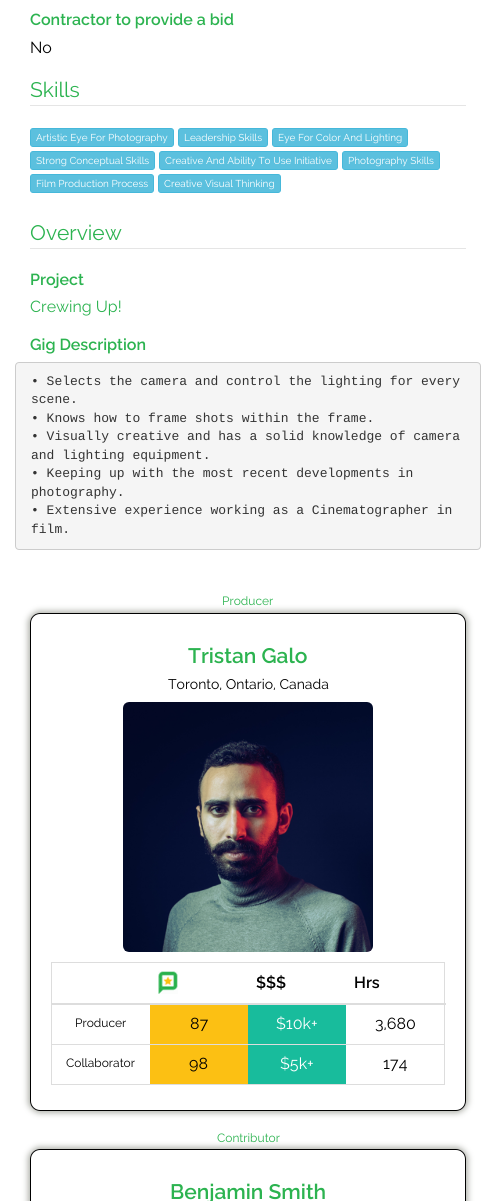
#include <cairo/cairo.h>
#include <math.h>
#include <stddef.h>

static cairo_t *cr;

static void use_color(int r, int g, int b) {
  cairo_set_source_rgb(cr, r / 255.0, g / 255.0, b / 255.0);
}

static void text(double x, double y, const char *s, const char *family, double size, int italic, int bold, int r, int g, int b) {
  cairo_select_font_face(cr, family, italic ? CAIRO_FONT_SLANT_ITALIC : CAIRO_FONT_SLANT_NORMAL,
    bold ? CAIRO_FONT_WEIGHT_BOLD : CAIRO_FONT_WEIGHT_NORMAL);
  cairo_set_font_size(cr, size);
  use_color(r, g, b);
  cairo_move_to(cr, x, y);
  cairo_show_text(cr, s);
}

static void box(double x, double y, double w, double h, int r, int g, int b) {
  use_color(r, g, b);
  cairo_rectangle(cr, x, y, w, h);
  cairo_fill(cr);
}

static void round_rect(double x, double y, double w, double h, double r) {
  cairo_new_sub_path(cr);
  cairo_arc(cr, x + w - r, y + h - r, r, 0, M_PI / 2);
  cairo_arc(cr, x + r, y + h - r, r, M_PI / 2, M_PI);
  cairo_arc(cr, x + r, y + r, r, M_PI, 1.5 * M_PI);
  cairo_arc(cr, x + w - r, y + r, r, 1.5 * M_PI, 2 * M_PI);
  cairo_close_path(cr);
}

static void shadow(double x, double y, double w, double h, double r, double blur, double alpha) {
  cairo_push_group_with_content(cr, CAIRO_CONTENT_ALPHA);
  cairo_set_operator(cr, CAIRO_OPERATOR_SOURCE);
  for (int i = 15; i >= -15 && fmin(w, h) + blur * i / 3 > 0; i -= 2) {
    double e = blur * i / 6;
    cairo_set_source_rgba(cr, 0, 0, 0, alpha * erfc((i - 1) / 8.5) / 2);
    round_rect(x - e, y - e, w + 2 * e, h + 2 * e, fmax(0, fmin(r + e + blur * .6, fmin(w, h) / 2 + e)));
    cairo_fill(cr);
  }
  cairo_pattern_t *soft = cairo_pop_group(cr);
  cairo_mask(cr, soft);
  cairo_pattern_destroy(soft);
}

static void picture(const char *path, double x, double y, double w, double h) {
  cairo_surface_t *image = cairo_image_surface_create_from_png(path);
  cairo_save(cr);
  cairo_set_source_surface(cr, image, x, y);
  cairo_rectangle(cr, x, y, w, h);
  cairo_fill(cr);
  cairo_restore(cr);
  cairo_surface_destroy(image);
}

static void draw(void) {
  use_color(255, 255, 255);
  cairo_paint(cr);
  box(30, 105, 436, 1, 229, 229, 229);
  use_color(91, 192, 222);
  round_rect(30.5, 128.5, 143, 18, 2.5);
  cairo_fill_preserve(cr);
  use_color(70, 184, 218);
  cairo_set_line_width(cr, 1);
  cairo_stroke(cr);
  use_color(91, 192, 222);
  round_rect(178.5, 128.5, 89, 18, 2.5);
  cairo_fill_preserve(cr);
  use_color(70, 184, 218);
  cairo_stroke(cr);
  use_color(91, 192, 222);
  round_rect(272.5, 128.5, 135, 18, 2.5);
  cairo_fill_preserve(cr);
  use_color(70, 184, 218);
  cairo_stroke(cr);
  use_color(91, 192, 222);
  round_rect(30.5, 151.5, 124, 18, 2.5);
  cairo_fill_preserve(cr);
  use_color(70, 184, 218);
  cairo_stroke(cr);
  use_color(91, 192, 222);
  round_rect(159.5, 151.5, 178, 18, 2.5);
  cairo_fill_preserve(cr);
  use_color(70, 184, 218);
  cairo_stroke(cr);
  use_color(91, 192, 222);
  round_rect(342.5, 151.5, 97, 18, 2.5);
  cairo_fill_preserve(cr);
  use_color(70, 184, 218);
  cairo_stroke(cr);
  use_color(91, 192, 222);
  round_rect(30.5, 174.5, 123, 18, 2.5);
  cairo_fill_preserve(cr);
  use_color(70, 184, 218);
  cairo_stroke(cr);
  use_color(91, 192, 222);
  round_rect(158.5, 174.5, 122, 18, 2.5);
  cairo_fill_preserve(cr);
  use_color(70, 184, 218);
  cairo_stroke(cr);
  box(30, 248, 436, 1, 229, 229, 229);
  use_color(245, 245, 245);
  round_rect(15.5, 362.5, 465, 187, 3.5);
  cairo_fill_preserve(cr);
  use_color(204, 204, 204);
  cairo_stroke(cr);
  cairo_save(cr);
  cairo_set_fill_rule(cr, CAIRO_FILL_RULE_EVEN_ODD);
  cairo_new_path(cr);
  cairo_move_to(cr, 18, 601);
  cairo_line_to(cr, 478, 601);
  cairo_line_to(cr, 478, 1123);
  cairo_line_to(cr, 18, 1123);
  cairo_close_path(cr);
  cairo_move_to(cr, 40, 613);
  cairo_line_to(cr, 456, 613);
  cairo_curve_to(cr, 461.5, 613, 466, 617.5, 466, 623);
  cairo_line_to(cr, 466, 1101);
  cairo_curve_to(cr, 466, 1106.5, 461.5, 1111, 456, 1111);
  cairo_line_to(cr, 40, 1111);
  cairo_curve_to(cr, 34.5, 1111, 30, 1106.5, 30, 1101);
  cairo_line_to(cr, 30, 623);
  cairo_curve_to(cr, 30, 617.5, 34.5, 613, 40, 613);
  cairo_close_path(cr);
  cairo_clip(cr);
  use_color(176, 178, 171);
  shadow(28, 611, 440, 502, 12, 3, 1);
  cairo_restore(cr);
  round_rect(30.5, 613.5, 435, 497, 9.5);
  use_color(0, 0, 0);
  cairo_stroke(cr);
  picture("img_01.png", 123, 702, 250, 250);
  box(51, 962, 394, 1, 221, 221, 221);
  box(444, 962, 1, 123, 221, 221, 221);
  box(51, 1084, 394, 1, 221, 221, 221);
  box(51, 962, 1, 123, 221, 221, 221);
  picture("img_02.png", 158, 971, 20, 23);
  box(51, 1003, 395, 2, 221, 221, 221);
  box(150, 1005, 98, 39, 252, 192, 19);
  box(248, 1005, 98, 39, 24, 188, 156);
  box(150, 1045, 98, 39, 252, 192, 19);
  box(248, 1045, 98, 39, 24, 188, 156);
  box(51, 1044, 394, 1, 221, 221, 221);
  cairo_save(cr);
  cairo_set_fill_rule(cr, CAIRO_FILL_RULE_EVEN_ODD);
  cairo_new_path(cr);
  cairo_move_to(cr, 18, 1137);
  cairo_line_to(cr, 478, 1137);
  cairo_line_to(cr, 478, 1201);
  cairo_line_to(cr, 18, 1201);
  cairo_close_path(cr);
  cairo_move_to(cr, 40, 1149);
  cairo_line_to(cr, 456, 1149);
  cairo_curve_to(cr, 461.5, 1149, 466, 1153.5, 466, 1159);
  cairo_line_to(cr, 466, 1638);
  cairo_curve_to(cr, 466, 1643.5, 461.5, 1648, 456, 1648);
  cairo_line_to(cr, 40, 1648);
  cairo_curve_to(cr, 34.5, 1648, 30, 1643.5, 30, 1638);
  cairo_line_to(cr, 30, 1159);
  cairo_curve_to(cr, 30, 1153.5, 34.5, 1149, 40, 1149);
  cairo_close_path(cr);
  cairo_clip(cr);
  use_color(176, 178, 171);
  shadow(28, 1147, 440, 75, 12, 3, 1);
  cairo_restore(cr);
  round_rect(30.5, 1149.5, 435, 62, 9.5);
  use_color(0, 0, 0);
  cairo_stroke(cr);
  text(30, 25, "Contractor to provide a bid", "Raleway SemiBold", 16, 0, 0, 44, 179, 80);
  text(30, 53, "No", "Raleway", 16, 0, 0, 0, 0, 0);
  text(30, 97, "Skills", "Raleway", 21, 0, 0, 44, 179, 80);
  text(36, 141, "Artistic Eye For Photography", "Raleway", 10, 0, 0, 255, 255, 255);
  text(184, 141, "Leadership Skills", "Raleway", 10, 0, 0, 255, 255, 255);
  text(278, 141, "Eye For Color And Lighting", "Raleway", 10, 0, 0, 255, 255, 255);
  text(36, 164, "Strong Conceptual Skills", "Raleway", 10, 0, 0, 255, 255, 255);
  text(165, 164, "Creative And Ability To Use Initiative", "Raleway", 10, 0, 0, 255, 255, 255);
  text(348, 164, "Photography Skills", "Raleway", 10, 0, 0, 255, 255, 255);
  text(36, 187, "Film Production Process", "Raleway", 10, 0, 0, 255, 255, 255);
  text(164, 187, "Creative Visual Thinking", "Raleway", 10, 0, 0, 255, 255, 255);
  text(30, 240, "Overview", "Raleway", 21, 0, 0, 44, 179, 80);
  text(30, 285, "Project", "Raleway SemiBold", 16, 0, 0, 44, 179, 80);
  text(30, 312, "Crewing Up!", "Raleway", 16, 0, 0, 44, 179, 80);
  text(30, 350, "Gig Description", "Raleway SemiBold", 16, 0, 0, 44, 179, 80);
  text(31, 385, "• Selects the camera and control the lighting for every", "Liberation Mono", 13, 0, 0, 51, 51, 51);
  text(31, 403, "scene.", "Liberation Mono", 13, 0, 0, 51, 51, 51);
  text(31, 422, "• Knows how to frame shots within the frame.", "Liberation Mono", 13, 0, 0, 51, 51, 51);
  text(31, 440, "• Visually creative and has a solid knowledge of camera", "Liberation Mono", 13, 0, 0, 51, 51, 51);
  text(31, 459, "and lighting equipment.", "Liberation Mono", 13, 0, 0, 51, 51, 51);
  text(31, 477, "• Keeping up with the most recent developments in", "Liberation Mono", 13, 0, 0, 51, 51, 51);
  text(31, 496, "photography.", "Liberation Mono", 13, 0, 0, 51, 51, 51);
  text(31, 514, "• Extensive experience working as a Cinematographer in", "Liberation Mono", 13, 0, 0, 51, 51, 51);
  text(31, 533, "film.", "Liberation Mono", 13, 0, 0, 51, 51, 51);
  text(222, 605, "Producer", "Raleway", 12, 0, 0, 44, 179, 80);
  text(188, 663, "Tristan Galo", "Raleway SemiBold", 21, 0, 0, 44, 179, 80);
  text(168, 689, "Toronto, Ontario, Canada", "Raleway", 14, 0, 0, 0, 0, 0);
  text(256, 988, "$$$", "Raleway SemiBold", 16, 0, 0, 0, 0, 0);
  text(354, 988, "Hrs", "Raleway SemiBold", 16, 0, 0, 0, 0, 0);
  text(75, 1027, "Producer", "Raleway", 12, 0, 0, 0, 0, 0);
  text(190, 1029, "87", "Raleway", 16, 0, 0, 0, 0, 0);
  text(276, 1029, "$10k+", "Raleway", 16, 0, 0, 255, 255, 255);
  text(375, 1029, "3,680", "Raleway", 16, 0, 0, 0, 0, 0);
  text(66, 1067, "Collaborator", "Raleway", 12, 0, 0, 0, 0, 0);
  text(189, 1069, "98", "Raleway", 16, 0, 0, 0, 0, 0);
  text(280, 1069, "$5k+", "Raleway", 16, 0, 0, 255, 255, 255);
  text(383, 1069, "174", "Raleway", 16, 0, 0, 0, 0, 0);
  text(217, 1142, "Contributor", "Raleway", 12, 0, 0, 44, 179, 80);
  text(170, 1199, "Benjamin Smith", "Raleway SemiBold", 21, 0, 0, 44, 179, 80);
}

int main(void) {
  cairo_surface_t *surface = cairo_image_surface_create(CAIRO_FORMAT_RGB24, 496, 1201);
  cr = cairo_create(surface);
  cairo_font_options_t *options = cairo_font_options_create();
  cairo_font_options_set_hint_metrics(options, CAIRO_HINT_METRICS_OFF);
  cairo_font_options_set_hint_style(options, CAIRO_HINT_STYLE_NONE);
  cairo_set_font_options(cr, options);
  cairo_set_miter_limit(cr, 4);
  draw();
  cairo_surface_write_to_png(surface, "out.png");
  cairo_font_options_destroy(options);
  cairo_destroy(cr);
  cairo_surface_destroy(surface);
  return 0;
}
